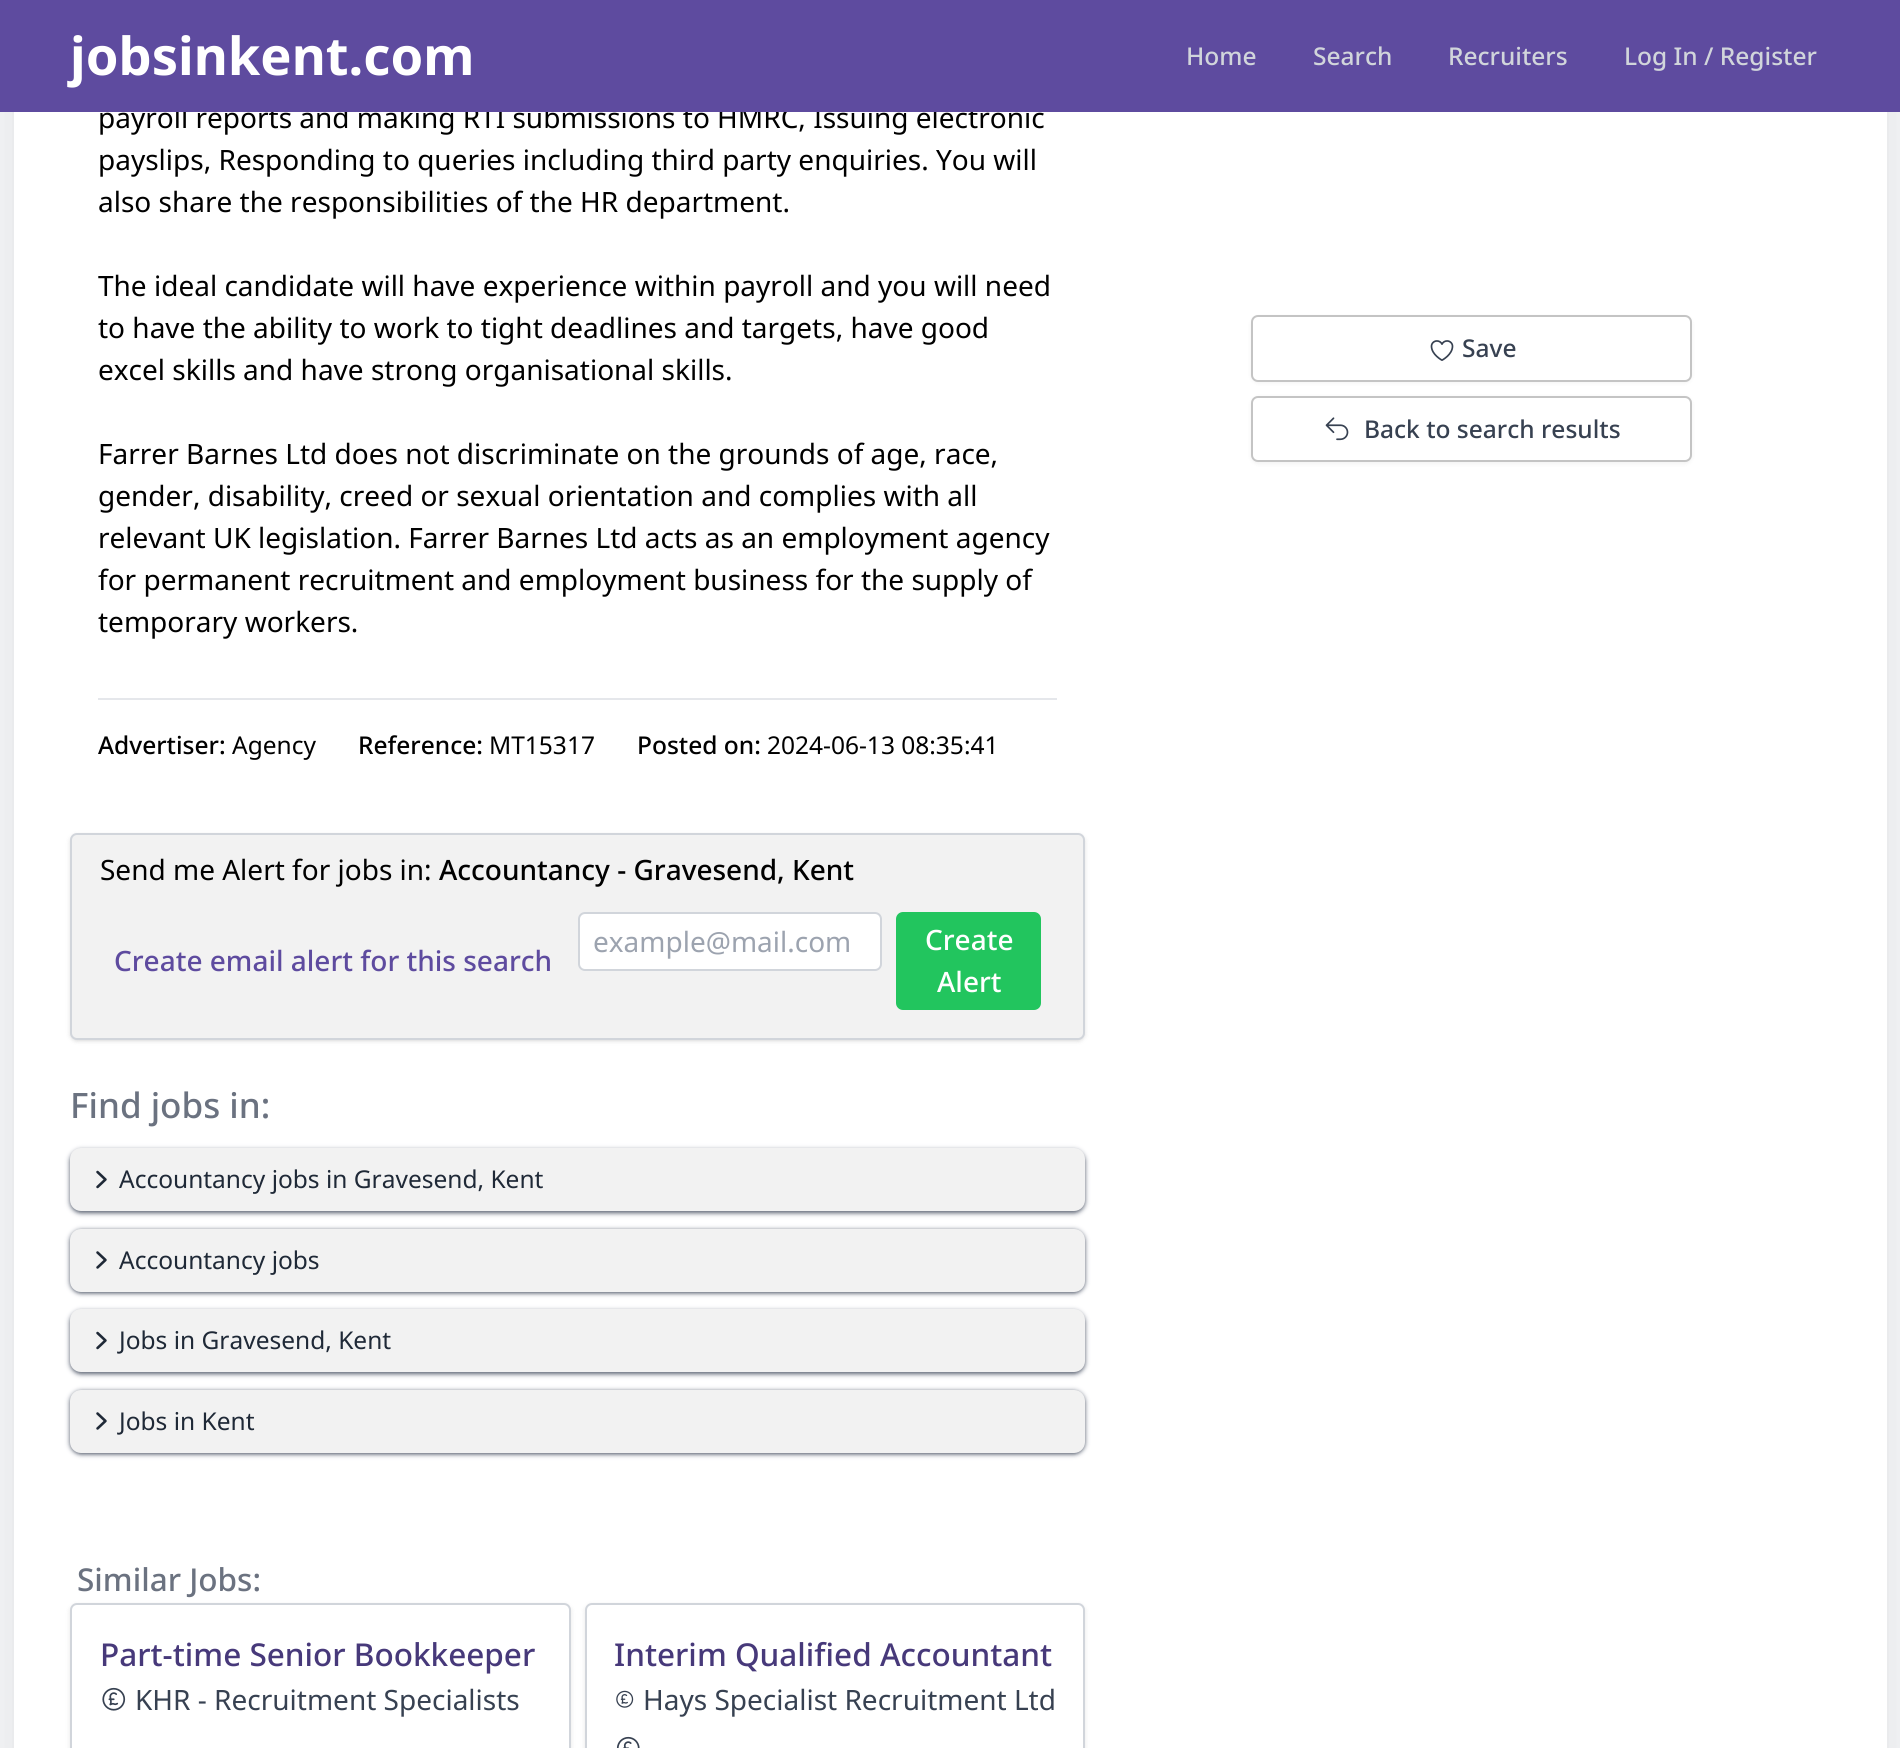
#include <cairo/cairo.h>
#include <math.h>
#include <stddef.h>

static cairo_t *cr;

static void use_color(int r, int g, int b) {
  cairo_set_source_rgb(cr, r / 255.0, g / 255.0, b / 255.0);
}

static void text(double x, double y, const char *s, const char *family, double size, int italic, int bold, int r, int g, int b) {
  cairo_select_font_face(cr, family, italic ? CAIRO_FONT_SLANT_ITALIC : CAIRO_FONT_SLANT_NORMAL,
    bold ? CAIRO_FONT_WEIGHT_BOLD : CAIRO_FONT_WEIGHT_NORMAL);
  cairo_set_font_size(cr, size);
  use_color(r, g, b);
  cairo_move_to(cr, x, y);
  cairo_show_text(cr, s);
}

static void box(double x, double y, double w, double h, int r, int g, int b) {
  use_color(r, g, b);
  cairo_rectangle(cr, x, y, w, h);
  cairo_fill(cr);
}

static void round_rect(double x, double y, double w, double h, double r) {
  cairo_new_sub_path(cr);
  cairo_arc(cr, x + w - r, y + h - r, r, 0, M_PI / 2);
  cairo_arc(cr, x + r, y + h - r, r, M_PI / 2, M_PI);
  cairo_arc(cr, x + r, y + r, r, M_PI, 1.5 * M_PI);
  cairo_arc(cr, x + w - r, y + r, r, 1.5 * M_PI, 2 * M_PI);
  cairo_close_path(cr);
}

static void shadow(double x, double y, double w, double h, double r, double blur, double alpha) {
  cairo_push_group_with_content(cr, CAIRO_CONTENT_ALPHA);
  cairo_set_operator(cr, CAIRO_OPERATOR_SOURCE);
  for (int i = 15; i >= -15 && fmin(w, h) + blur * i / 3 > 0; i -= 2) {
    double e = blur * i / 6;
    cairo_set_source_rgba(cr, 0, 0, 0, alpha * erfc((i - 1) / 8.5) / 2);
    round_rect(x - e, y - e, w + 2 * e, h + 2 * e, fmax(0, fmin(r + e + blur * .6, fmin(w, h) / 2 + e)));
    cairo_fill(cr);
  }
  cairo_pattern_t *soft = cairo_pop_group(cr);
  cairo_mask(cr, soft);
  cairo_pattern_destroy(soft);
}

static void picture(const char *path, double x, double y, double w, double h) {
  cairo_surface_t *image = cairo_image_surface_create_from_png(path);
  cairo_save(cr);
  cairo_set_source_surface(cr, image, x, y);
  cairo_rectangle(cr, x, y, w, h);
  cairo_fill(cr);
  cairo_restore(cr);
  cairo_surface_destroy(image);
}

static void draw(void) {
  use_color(243, 244, 246);
  cairo_paint(cr);
  use_color(0, 0, 0);
  shadow(23, -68, 1855, 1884, 2, 22, 0.1);
  box(14, 112, 1873, 1636, 255, 255, 255);
  box(98, 698, 959, 2, 229, 231, 235);
  use_color(0, 0, 0);
  shadow(72, 837, 1011, 203, 5, 2, 0.1);
  shadow(70, 835, 1015, 206, 7, 2.5, 0.1);
  use_color(242, 242, 242);
  round_rect(71, 834, 1013, 205, 6);
  cairo_fill_preserve(cr);
  use_color(209, 213, 219);
  cairo_stroke(cr);
  use_color(255, 255, 255);
  round_rect(579, 913, 302, 57, 6);
  cairo_fill_preserve(cr);
  use_color(209, 213, 219);
  cairo_stroke(cr);
  use_color(34, 197, 94);
  round_rect(896, 912, 145, 98, 7);
  cairo_fill(cr);
  use_color(107, 114, 128);
  shadow(72, 1152, 1011, 59, 9, 2, 1);
  shadow(70, 1150, 1015, 63, 11, 2.5, 1);
  use_color(242, 242, 242);
  round_rect(70, 1148, 1015, 63, 11);
  cairo_fill(cr);
  picture("img_01.png", 96, 1170, 11, 19);
  use_color(107, 114, 128);
  shadow(72, 1232, 1011, 60, 9, 2, 1);
  shadow(70, 1230, 1015, 63, 11, 2.5, 1);
  use_color(242, 242, 242);
  round_rect(70, 1229, 1015, 63, 11);
  cairo_fill(cr);
  picture("img_02.png", 96, 1251, 11, 18);
  use_color(107, 114, 128);
  shadow(72, 1313, 1011, 59, 9, 2, 1);
  shadow(70, 1311, 1015, 63, 11, 2.5, 1);
  use_color(242, 242, 242);
  round_rect(70, 1309, 1015, 63, 11);
  cairo_fill(cr);
  picture("img_01.png", 96, 1331, 11, 19);
  use_color(107, 114, 128);
  shadow(72, 1393, 1011, 60, 9, 2, 1);
  shadow(70, 1391, 1015, 63, 11, 2.5, 1);
  use_color(242, 242, 242);
  round_rect(70, 1390, 1015, 63, 11);
  cairo_fill(cr);
  picture("img_02.png", 96, 1412, 11, 18);
  use_color(0, 0, 0);
  shadow(70, 1605, 501, 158, 7, 2.5, 0.1);
  use_color(255, 255, 255);
  round_rect(71, 1604, 499, 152, 6);
  cairo_fill_preserve(cr);
  use_color(209, 213, 219);
  cairo_stroke(cr);
  picture("img_03.png", 102, 1687, 24, 24);
  use_color(0, 0, 0);
  shadow(585, 1605, 500, 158, 7, 2.5, 0.1);
  use_color(255, 255, 255);
  round_rect(586, 1604, 498, 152, 6);
  cairo_fill_preserve(cr);
  use_color(209, 213, 219);
  cairo_stroke(cr);
  picture("img_04.png", 616, 1690, 18, 18);
  picture("img_05.png", 616, 1736, 24, 12);
  use_color(0, 0, 0);
  shadow(1251, 317, 441, 66, 7, 2, 0.05);
  use_color(255, 255, 255);
  round_rect(1252, 316, 439, 65, 6);
  cairo_fill_preserve(cr);
  use_color(196, 196, 196);
  cairo_stroke(cr);
  picture("img_06.png", 1430, 340, 24, 21);
  use_color(0, 0, 0);
  shadow(1251, 397, 441, 67, 7, 2, 0.05);
  use_color(255, 255, 255);
  round_rect(1252, 397, 439, 64, 6);
  cairo_fill_preserve(cr);
  use_color(196, 196, 196);
  cairo_stroke(cr);
  picture("img_07.png", 1325, 417, 24, 24);
  text(98, 128, "payroll reports and making RTI submissions to HMRC, Issuing electronic", "Noto Sans", 28, 0, 0, 0, 0, 0);
  box(0, 0, 1900, 112, 94, 75, 159);
  text(1624, 65, "Log In / Register", "Noto Sans Medium", 24.5, 0, 0, 209, 213, 219);
  text(1448, 65, "Recruiters", "Noto Sans Medium", 24.5, 0, 0, 209, 213, 219);
  text(1313, 65, "Search", "Noto Sans Medium", 24.5, 0, 0, 209, 213, 219);
  text(1186, 65, "Home", "Noto Sans Medium", 24.5, 0, 0, 209, 213, 219);
  text(70, 75, "jobsinkent.com", "Noto Sans", 52.5, 0, 1, 255, 255, 255);
  text(98, 170, "payslips, Responding to queries including third party enquiries. You will", "Noto Sans", 28, 0, 0, 0, 0, 0);
  text(98, 212, "also share the responsibilities of the HR department.", "Noto Sans", 28, 0, 0, 0, 0, 0);
  text(98, 296, "The ideal candidate will have experience within payroll and you will need", "Noto Sans", 28, 0, 0, 0, 0, 0);
  text(98, 338, "to have the ability to work to tight deadlines and targets, have good", "Noto Sans", 28, 0, 0, 0, 0, 0);
  text(98, 380, "excel skills and have strong organisational skills.", "Noto Sans", 28, 0, 0, 0, 0, 0);
  text(98, 464, "Farrer Barnes Ltd does not discriminate on the grounds of age, race,", "Noto Sans", 28, 0, 0, 0, 0, 0);
  text(98, 506, "gender, disability, creed or sexual orientation and complies with all", "Noto Sans", 28, 0, 0, 0, 0, 0);
  text(98, 548, "relevant UK legislation. Farrer Barnes Ltd acts as an employment agency", "Noto Sans", 28, 0, 0, 0, 0, 0);
  text(98, 590, "for permanent recruitment and employment business for the supply of", "Noto Sans", 28, 0, 0, 0, 0, 0);
  text(98, 632, "temporary workers.", "Noto Sans", 28, 0, 0, 0, 0, 0);
  text(98, 754, "Advertiser:", "Noto Sans Medium", 24.5, 0, 0, 0, 0, 0);
  text(232, 754, "Agency", "Noto Sans", 24.5, 0, 0, 0, 0, 0);
  text(358, 754, "Reference:", "Noto Sans Medium", 24.5, 0, 0, 0, 0, 0);
  text(489, 754, "MT15317", "Noto Sans", 24.5, 0, 0, 0, 0, 0);
  text(637, 754, "Posted on:", "Noto Sans Medium", 24.5, 0, 0, 0, 0, 0);
  text(767, 754, "2024-06-13 08:35:41", "Noto Sans", 24.5, 0, 0, 0, 0, 0);
  text(100, 880, "Send me Alert for jobs in:", "Noto Sans", 28, 0, 0, 0, 0, 0);
  text(439, 880, "Accountancy - Gravesend, Kent", "Noto Sans Medium", 28, 0, 0, 0, 0, 0);
  text(114, 971, "Create email alert for this search", "Noto Sans Medium", 28, 0, 0, 94, 75, 159);
  text(593, 952, "example@mail.com", "Noto Sans", 28, 0, 0, 156, 163, 175);
  text(925, 950, "Create", "Noto Sans Medium", 28, 0, 0, 255, 255, 255);
  text(937, 992, "Alert", "Noto Sans Medium", 28, 0, 0, 255, 255, 255);
  text(70, 1118, "Find jobs in:", "Noto Sans Medium", 35, 0, 0, 107, 114, 128);
  text(119, 1188, "Accountancy jobs in Gravesend, Kent", "Noto Sans", 24.5, 0, 0, 31, 41, 55);
  text(119, 1269, "Accountancy jobs", "Noto Sans", 24.5, 0, 0, 31, 41, 55);
  text(119, 1349, "Jobs in Gravesend, Kent", "Noto Sans", 24.5, 0, 0, 31, 41, 55);
  text(119, 1430, "Jobs in Kent", "Noto Sans", 24.5, 0, 0, 31, 41, 55);
  text(77, 1591, "Similar Jobs:", "Noto Sans Medium", 31.5, 0, 0, 107, 114, 128);
  text(100, 1666, "Part-time Senior Bookkeeper", "Noto Sans Medium", 31.5, 0, 0, 71, 57, 122);
  text(135, 1710, "KHR - Recruitment Specialists", "Noto Sans", 28, 0, 0, 55, 65, 81);
  text(614, 1666, "Interim Qualified Accountant", "Noto Sans Medium", 31.5, 0, 0, 71, 57, 122);
  text(643, 1710, "Hays Specialist Recruitment Ltd", "Noto Sans", 28, 0, 0, 55, 65, 81);
  text(1462, 357, "Save", "Noto Sans Medium", 24.5, 0, 0, 55, 65, 81);
  text(1364, 438, "Back to search results", "Noto Sans Medium", 24.5, 0, 0, 55, 65, 81);
}

int main(void) {
  cairo_surface_t *surface = cairo_image_surface_create(CAIRO_FORMAT_RGB24, 1900, 1748);
  cr = cairo_create(surface);
  cairo_font_options_t *options = cairo_font_options_create();
  cairo_font_options_set_hint_metrics(options, CAIRO_HINT_METRICS_OFF);
  cairo_font_options_set_hint_style(options, CAIRO_HINT_STYLE_NONE);
  cairo_set_font_options(cr, options);
  cairo_set_miter_limit(cr, 4);
  draw();
  cairo_surface_write_to_png(surface, "out.png");
  cairo_font_options_destroy(options);
  cairo_destroy(cr);
  cairo_surface_destroy(surface);
  return 0;
}
